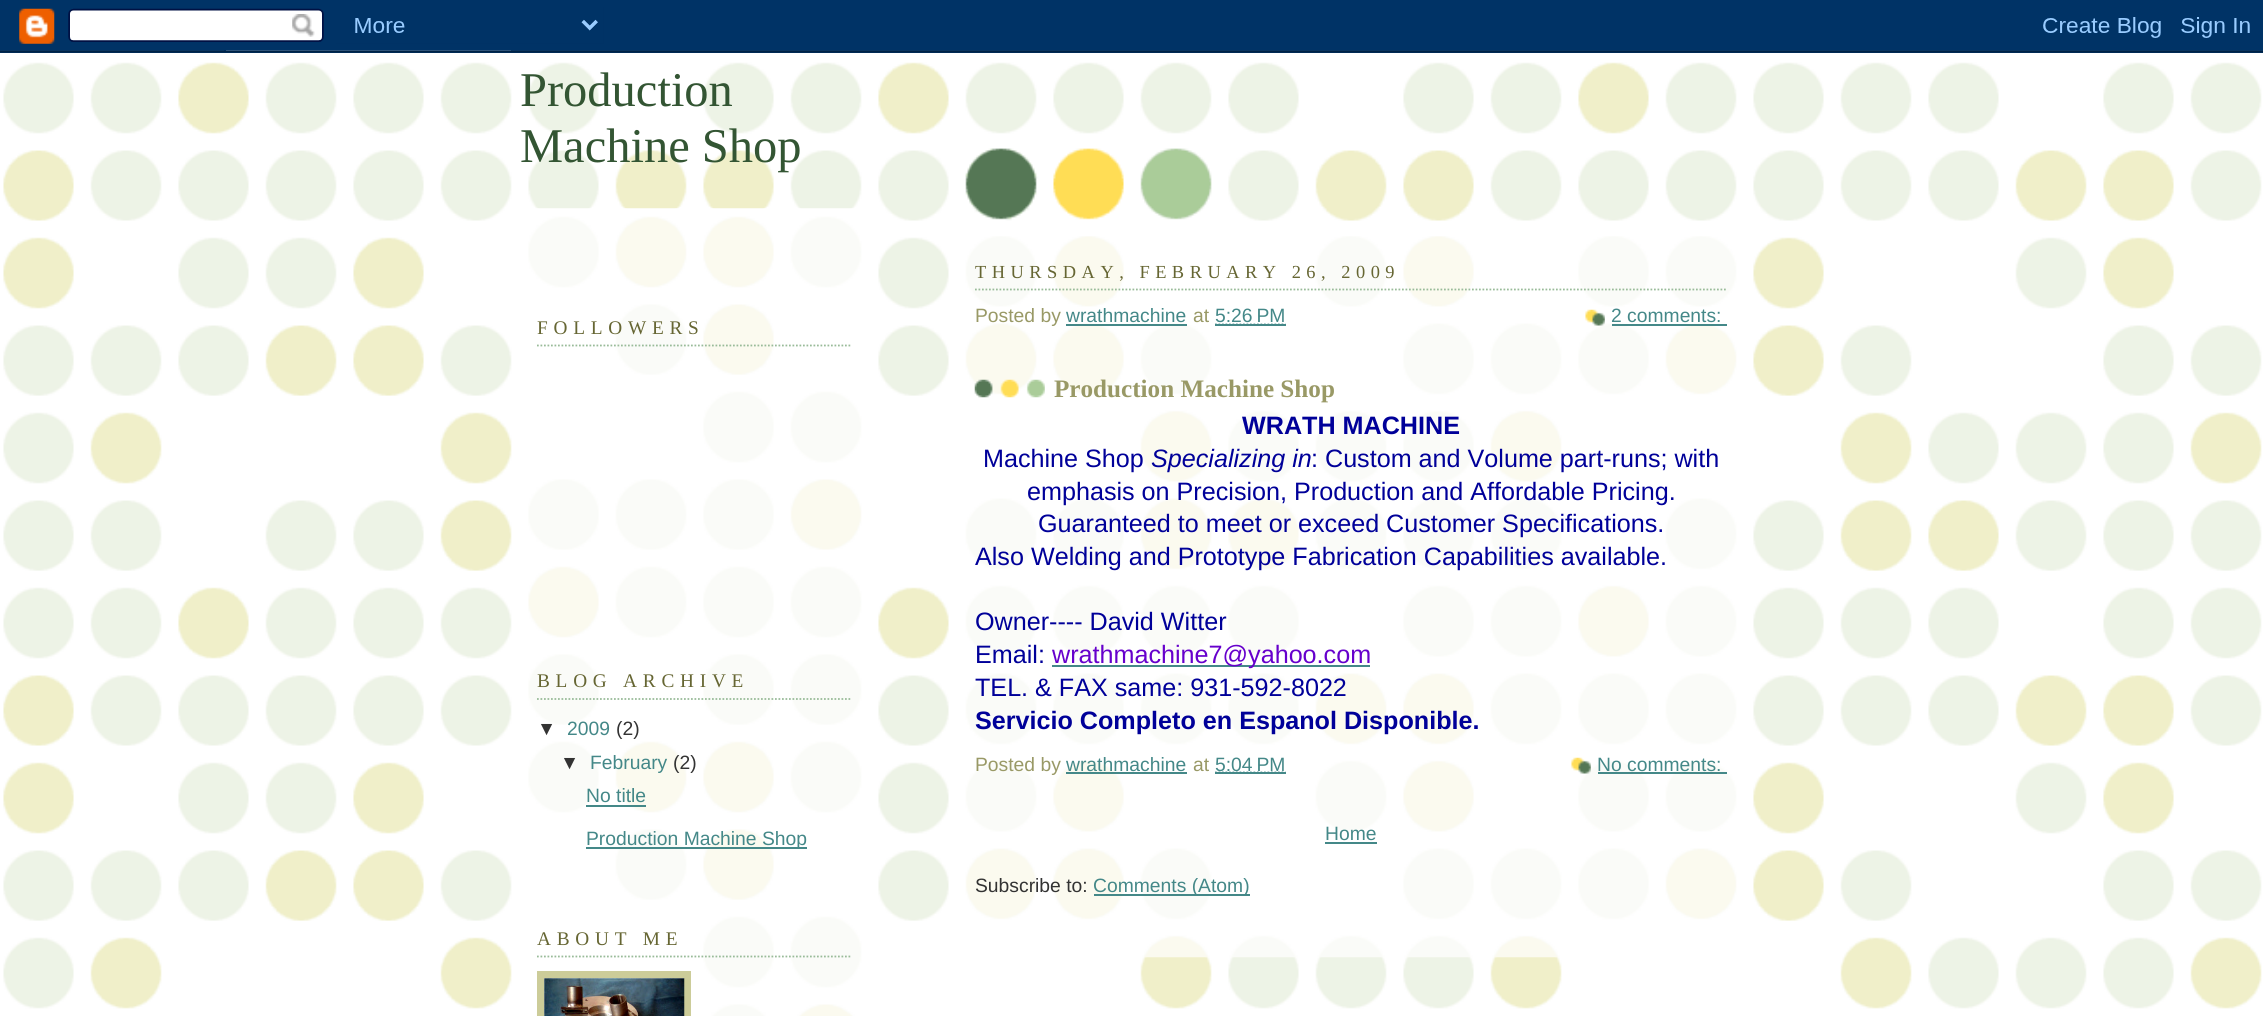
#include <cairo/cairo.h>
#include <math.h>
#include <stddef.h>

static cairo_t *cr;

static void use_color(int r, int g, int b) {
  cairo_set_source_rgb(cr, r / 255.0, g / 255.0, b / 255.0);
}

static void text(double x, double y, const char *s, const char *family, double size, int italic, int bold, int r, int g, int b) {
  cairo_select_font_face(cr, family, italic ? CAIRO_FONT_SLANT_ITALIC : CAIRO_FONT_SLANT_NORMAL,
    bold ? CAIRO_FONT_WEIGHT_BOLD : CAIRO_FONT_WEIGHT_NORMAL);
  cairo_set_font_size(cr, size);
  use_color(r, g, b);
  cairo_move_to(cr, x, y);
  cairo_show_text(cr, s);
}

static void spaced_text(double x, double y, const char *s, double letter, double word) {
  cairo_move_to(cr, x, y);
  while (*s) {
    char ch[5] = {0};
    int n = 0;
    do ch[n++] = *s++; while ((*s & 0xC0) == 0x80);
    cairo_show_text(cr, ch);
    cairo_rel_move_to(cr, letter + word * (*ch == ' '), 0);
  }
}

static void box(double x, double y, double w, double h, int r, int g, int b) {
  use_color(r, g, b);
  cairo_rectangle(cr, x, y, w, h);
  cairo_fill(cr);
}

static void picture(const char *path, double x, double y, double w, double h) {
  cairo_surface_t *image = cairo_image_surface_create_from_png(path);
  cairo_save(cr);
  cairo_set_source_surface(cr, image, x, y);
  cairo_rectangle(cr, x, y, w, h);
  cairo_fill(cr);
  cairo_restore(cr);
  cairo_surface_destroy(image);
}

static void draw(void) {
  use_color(255, 255, 255);
  cairo_paint(cr);
  picture("img_01.png", 3, 50, 2259, 959);
  picture("img_02.png", 0, 0, 2263, 53);
  picture("img_03.png", 965, 148, 247, 73);
  picture("img_04.png", 528, 208, 334, 808);
  cairo_new_path(cr);
  cairo_move_to(cr, 537, 345.5);
  cairo_line_to(cr, 852, 345.5);
  use_color(153, 187, 153);
  cairo_set_line_width(cr, 1.8);
  cairo_set_dash(cr, (double[]){1.75, 1.75}, 2, 0);
  cairo_stroke(cr);
  cairo_new_path(cr);
  cairo_move_to(cr, 537, 699);
  cairo_line_to(cr, 852, 699);
  cairo_stroke(cr);
  box(586, 805, 60, 2, 68, 136, 136);
  box(586, 847, 221, 2, 68, 136, 136);
  cairo_new_path(cr);
  cairo_move_to(cr, 537, 956.5);
  cairo_line_to(cr, 852, 956.5);
  use_color(153, 187, 153);
  cairo_stroke(cr);
  cairo_rectangle(cr, 540.5, 974.5, 147, 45);
  use_color(204, 204, 153);
  cairo_set_line_width(cr, 7);
  cairo_set_dash(cr, NULL, 0, 0);
  cairo_stroke(cr);
  picture("img_05.png", 544, 978, 141, 38);
  picture("img_06.png", 965, 236, 772, 722);
  cairo_new_path(cr);
  cairo_move_to(cr, 975, 289.5);
  cairo_line_to(cr, 1727, 289.5);
  use_color(153, 187, 153);
  cairo_set_line_width(cr, 1.8);
  cairo_set_dash(cr, (double[]){1.75, 1.75}, 2, 0);
  cairo_stroke(cr);
  box(1066, 324, 121, 2, 68, 136, 136);
  cairo_new_path(cr);
  cairo_move_to(cr, 1215, 324.5);
  cairo_line_to(cr, 1285.5, 324.5);
  cairo_stroke(cr);
  box(1215, 324, 71, 2, 68, 136, 136);
  picture("img_07.png", 1585, 309, 20, 17);
  box(1612, 324, 115, 2, 68, 136, 136);
  picture("img_08.png", 974, 379, 71, 19);
  box(1052, 665, 318, 2, 68, 136, 136);
  box(1066, 772, 121, 2, 68, 136, 136);
  cairo_new_path(cr);
  cairo_move_to(cr, 1215, 772.5);
  cairo_line_to(cr, 1285.5, 772.5);
  cairo_stroke(cr);
  box(1215, 772, 71, 2, 68, 136, 136);
  picture("img_09.png", 1571, 757, 20, 17);
  box(1598, 772, 129, 2, 68, 136, 136);
  box(1325, 842, 52, 2, 68, 136, 136);
  box(1094, 894, 156, 2, 68, 136, 136);
  text(520, 106, "Production", "Liberation Serif", 48.5, 0, 0, 51, 85, 51);
  text(520, 162, "Machine Shop", "Liberation Serif", 48.5, 0, 0, 51, 85, 51);
  cairo_set_font_size(cr, 19.3);
  use_color(102, 102, 51);
  spaced_text(537, 334, "FOLLOWERS", 5.75, 0);
  spaced_text(537, 687, "BLOG ARCHIVE", 5.75, 0);
  text(537, 735, "▼", "Liberation Sans", 19.3, 0, 0, 51, 51, 51);
  text(567, 735, "2009", "Liberation Sans", 19.3, 0, 0, 68, 136, 136);
  text(616, 735, "(2)", "Liberation Sans", 19.3, 0, 0, 51, 51, 51);
  text(560, 769, "▼", "Liberation Sans", 19.3, 0, 0, 51, 51, 51);
  text(590, 769, "February", "Liberation Sans", 19.3, 0, 0, 68, 136, 136);
  text(673, 769, "(2)", "Liberation Sans", 19.3, 0, 0, 51, 51, 51);
  text(586, 802, "No title", "Liberation Sans", 19.3, 0, 0, 68, 136, 136);
  text(586, 845, "Production Machine Shop", "Liberation Sans", 19.3, 0, 0, 68, 136, 136);
  cairo_select_font_face(cr, "Liberation Serif", CAIRO_FONT_SLANT_NORMAL, CAIRO_FONT_WEIGHT_NORMAL);
  use_color(102, 102, 51);
  spaced_text(537, 945, "ABOUT ME", 5.75, 0);
  cairo_set_font_size(cr, 18.4);
  spaced_text(975, 278, "THURSDAY, FEBRUARY 26, 2009", 5.5, 0);
  text(975, 322, "Posted by", "Liberation Sans", 19.3, 0, 0, 153, 153, 102);
  text(1066, 322, "wrathmachine", "Liberation Sans", 19.3, 0, 0, 68, 136, 136);
  text(1193, 322, "at", "Liberation Sans", 19.3, 0, 0, 153, 153, 102);
  text(1215, 322, "5:26 PM", "Liberation Sans", 19.3, 0, 0, 68, 136, 136);
  text(1611, 322, "2 comments:", "Liberation Sans", 19.3, 0, 0, 68, 136, 136);
  text(1054, 397, "Production Machine Shop", "Liberation Serif", 25.15, 0, 1, 153, 153, 102);
  text(1242, 434, "WRATH MACHINE", "Liberation Sans", 25.15, 0, 1, 0, 0, 153);
  text(983, 467, "Machine Shop", "Liberation Sans", 25.15, 0, 0, 0, 0, 153);
  text(1151, 467, "Specializing in", "Liberation Sans", 25.15, 1, 0, 0, 0, 153);
  text(1311, 467, ": Custom and Volume part-runs; with", "Liberation Sans", 25.15, 0, 0, 0, 0, 153);
  text(1027, 500, "emphasis on Precision, Production and Affordable Pricing.", "Liberation Sans", 25.15, 0, 0, 0, 0, 153);
  text(1038, 532, "Guaranteed to meet or exceed Customer Specifications.", "Liberation Sans", 25.15, 0, 0, 0, 0, 153);
  text(975, 565, "Also Welding and Prototype Fabrication Capabilities available.", "Liberation Sans", 25.15, 0, 0, 0, 0, 153);
  text(975, 630, "Owner---- David Witter", "Liberation Sans", 25.15, 0, 0, 0, 0, 153);
  text(975, 663, "Email:", "Liberation Sans", 25.15, 0, 0, 0, 0, 153);
  text(1052, 663, "wrathmachine7@yahoo.com", "Liberation Sans", 25.15, 0, 0, 102, 0, 204);
  text(975, 696, "TEL. & FAX same: 931-592-8022", "Liberation Sans", 25.15, 0, 0, 0, 0, 153);
  text(975, 729, "Servicio Completo en Espanol Disponible.", "Liberation Sans", 25.15, 0, 1, 0, 0, 153);
  text(975, 771, "Posted by", "Liberation Sans", 19.3, 0, 0, 153, 153, 102);
  text(1066, 771, "wrathmachine", "Liberation Sans", 19.3, 0, 0, 68, 136, 136);
  text(1193, 771, "at", "Liberation Sans", 19.3, 0, 0, 153, 153, 102);
  text(1215, 771, "5:04 PM", "Liberation Sans", 19.3, 0, 0, 68, 136, 136);
  text(1597, 771, "No comments:", "Liberation Sans", 19.3, 0, 0, 68, 136, 136);
  text(1325, 840, "Home", "Liberation Sans", 19.3, 0, 0, 68, 136, 136);
  text(975, 892, "Subscribe to:", "Liberation Sans", 19.3, 0, 0, 51, 51, 51);
  text(1093, 892, "Comments (Atom)", "Liberation Sans", 19.3, 0, 0, 68, 136, 136);
}

int main(void) {
  cairo_surface_t *surface = cairo_image_surface_create(CAIRO_FORMAT_RGB24, 2263, 1016);
  cr = cairo_create(surface);
  cairo_font_options_t *options = cairo_font_options_create();
  cairo_font_options_set_hint_metrics(options, CAIRO_HINT_METRICS_OFF);
  cairo_font_options_set_hint_style(options, CAIRO_HINT_STYLE_NONE);
  cairo_set_font_options(cr, options);
  cairo_set_miter_limit(cr, 4);
  draw();
  cairo_surface_write_to_png(surface, "out.png");
  cairo_font_options_destroy(options);
  cairo_destroy(cr);
  cairo_surface_destroy(surface);
  return 0;
}
